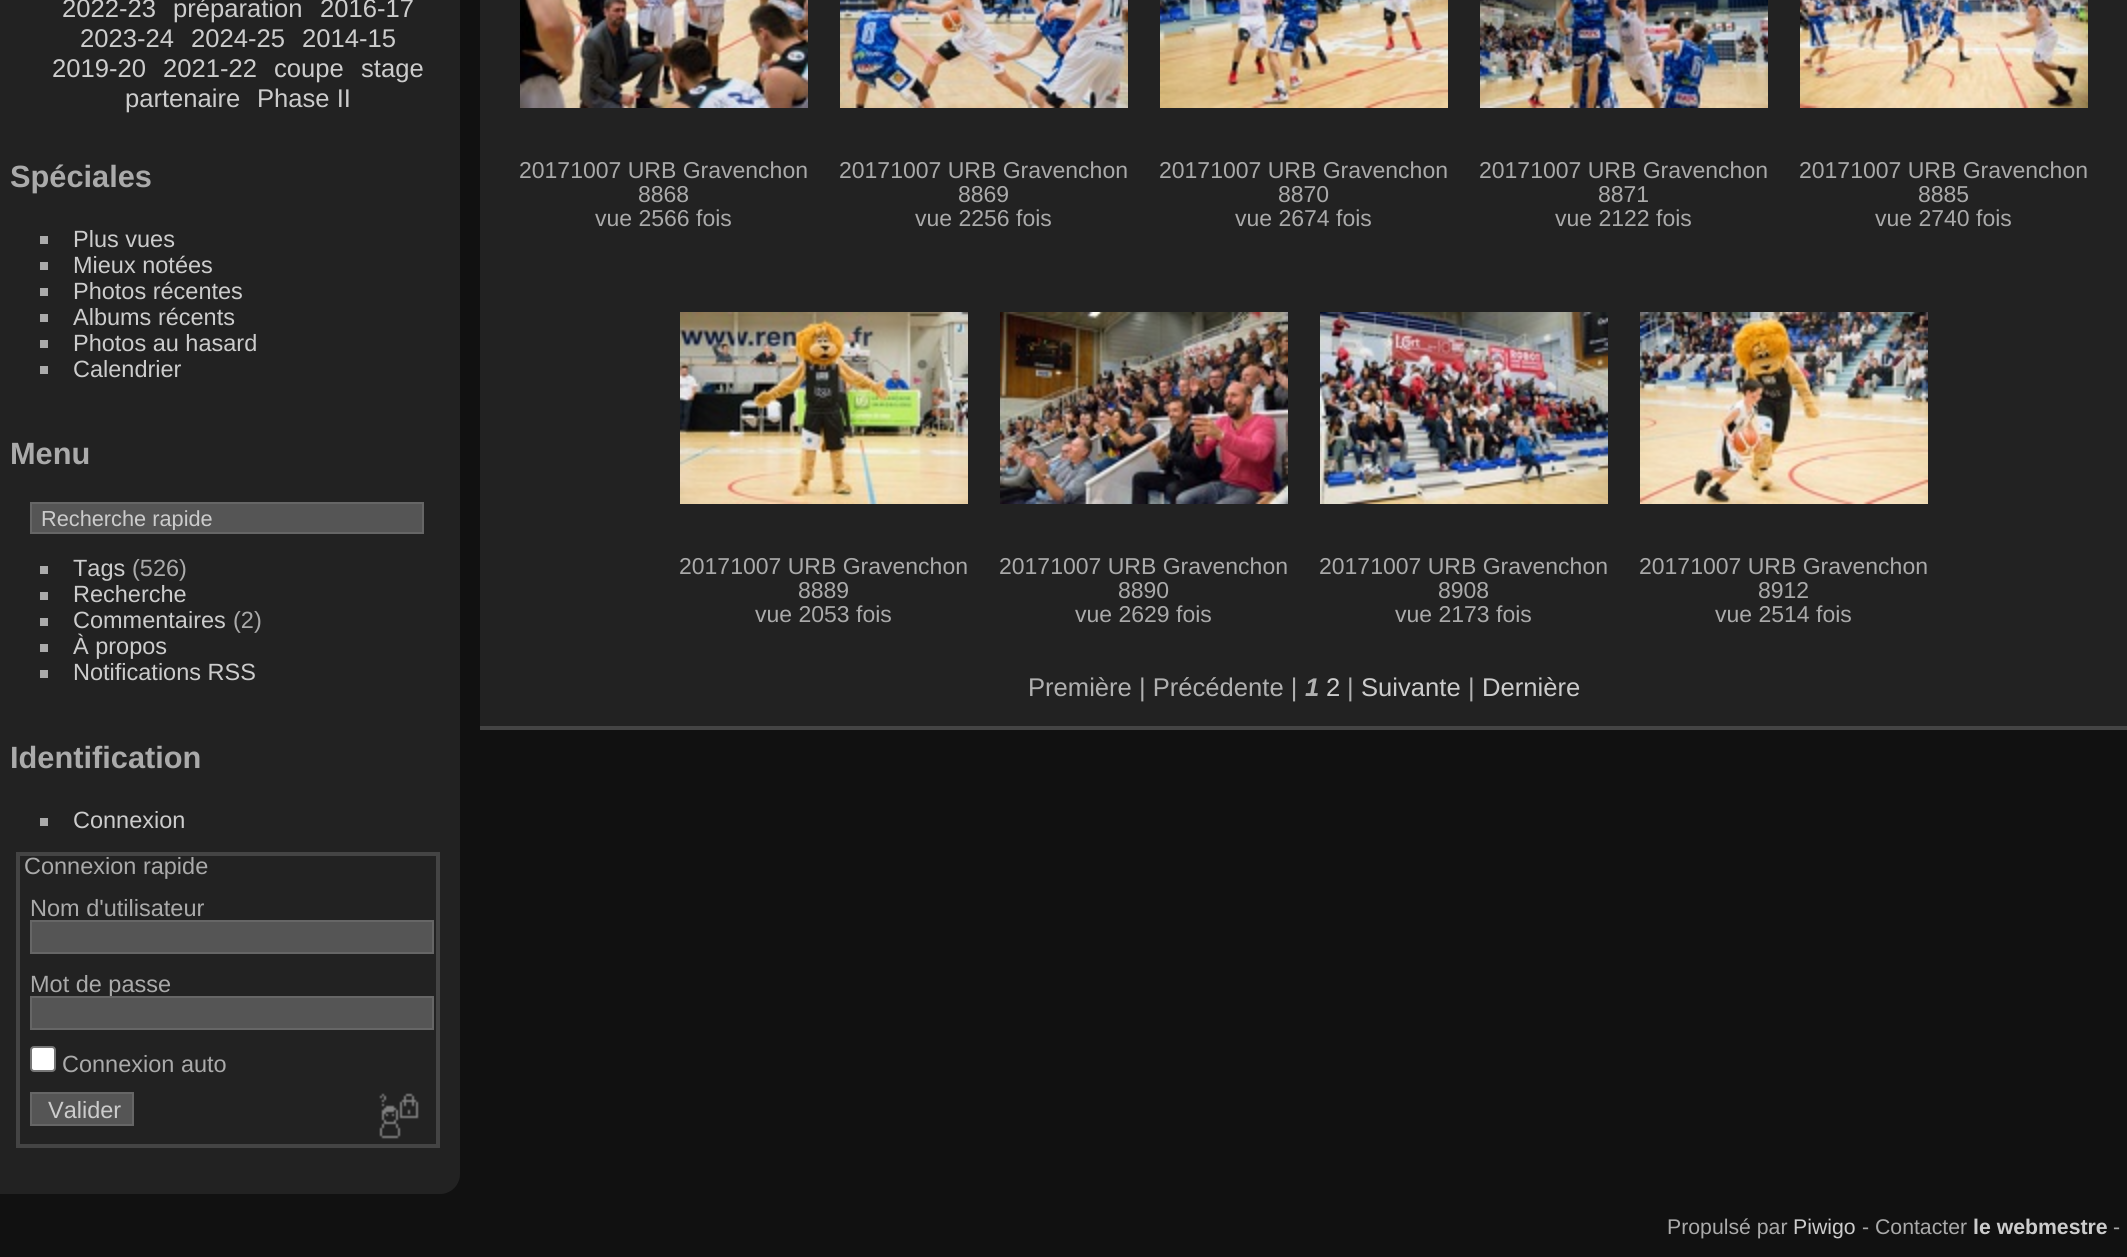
import math
import cairo

surface = cairo.ImageSurface(cairo.FORMAT_RGB24, 2127, 1257)
c = cairo.Context(surface)
options = cairo.FontOptions()
options.set_hint_metrics(cairo.HINT_METRICS_OFF)
options.set_hint_style(cairo.HINT_STYLE_NONE)
c.set_font_options(options)
c.set_miter_limit(4)
def C(code):
 c.set_source_rgb(*(v / 255 for v in bytes.fromhex(code[-6:])))
def F(family, size, italic, bold):
 c.select_font_face(family, cairo.FONT_SLANT_ITALIC if italic else cairo.FONT_SLANT_NORMAL, cairo.FONT_WEIGHT_BOLD if bold else cairo.FONT_WEIGHT_NORMAL)
 c.set_font_size(size)
def T(x, y, s):
 c.move_to(x, y)
 c.show_text(s)
def R(x, y, w, h):
 c.rectangle(x, y, w, h)
 c.fill()
def Q(x, y, w, h, r):
 c.new_sub_path()
 for i, (u, v) in enumerate([(x + w - r, y + h - r), (x + r, y + h - r), (x + r, y + r), (x + w - r, y + r)]):
  c.arc(u, v, r, i * math.pi / 2, (i + 1) * math.pi / 2)
 c.close_path()
def I(path, x, y, w, h):
 c.save()
 c.set_source_surface(cairo.ImageSurface.create_from_png(path), x, y)
 c.rectangle(x, y, w, h)
 c.fill()
 c.restore()
C('111111')
c.paint()
C('222222')
c.new_path()
c.move_to(0,-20)
c.line_to(440,-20)
c.curve_to(451,-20,460,-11,460,0)
c.line_to(460,1174)
c.curve_to(460,1185,451,1194,440,1194)
c.line_to(0,1194)
c.close_path()
c.fill()
F('Liberation Sans',25.6,0,0)
C('cccccc')
T(62,17,'2022-23')
T(173,17,'préparation')
T(320,17,'2016-17')
T(80,47,'2023-24')
T(191,47,'2024-25')
T(302,47,'2014-15')
T(52,77,'2019-20')
T(163,77,'2021-22')
T(274,77,'coupe')
T(361,77,'stage')
T(125,107,'partenaire')
T(257,107,'Phase II')
F('Liberation Sans',30.75,0,1)
C('aaaaaa')
T(10,187,'Spéciales')
R(40,236,8,8)
F('Liberation Sans',23.5,0,0)
C('cccccc')
T(73,247,'Plus vues')
C('aaaaaa')
R(40,262,8,8)
C('cccccc')
T(73,273,'Mieux notées')
C('aaaaaa')
R(40,288,8,8)
C('cccccc')
T(73,299,'Photos récentes')
C('aaaaaa')
R(40,314,8,8)
C('cccccc')
T(73,325,'Albums récents')
C('aaaaaa')
R(40,340,8,8)
C('cccccc')
T(73,351,'Photos au hasard')
C('aaaaaa')
R(40,366,8,8)
C('cccccc')
T(73,377,'Calendrier')
F('Liberation Sans',30.75,0,1)
C('aaaaaa')
T(10,464,'Menu')
C('555555')
c.rectangle(31,503,392,30)
c.fill_preserve()
C('666666')
c.stroke()
c.save()
c.rectangle(36,506,382,24)
c.clip()
F('Liberation Sans',21.75,0,0)
C('cccccc')
T(41,526,'Recherche rapide')
c.restore()
C('aaaaaa')
R(40,566,8,8)
F('Liberation Sans',23.5,0,0)
C('cccccc')
T(73,576,'Tags')
C('aaaaaa')
T(132,576,'(526)')
R(40,592,8,8)
C('cccccc')
T(73,602,'Recherche')
C('aaaaaa')
R(40,618,8,8)
C('cccccc')
T(73,628,'Commentaires')
C('aaaaaa')
T(233,628,'(2)')
R(40,644,8,8)
C('cccccc')
T(73,654,'À propos')
C('aaaaaa')
R(40,670,8,8)
C('cccccc')
T(73,680,'Notifications RSS')
F('Liberation Sans',30.75,0,1)
C('aaaaaa')
T(10,768,'Identification')
R(40,818,8,8)
F('Liberation Sans',23.5,0,0)
C('cccccc')
T(73,828,'Connexion')
c.rectangle(18,854,420,292)
C('444444')
c.set_line_width(4)
c.stroke()
C('aaaaaa')
T(24,874,'Connexion rapide')
T(30,916,'Nom d\'utilisateur')
C('555555')
c.rectangle(31,921,402,32)
c.fill_preserve()
C('666666')
c.set_line_width(2)
c.stroke()
C('aaaaaa')
T(30,992,'Mot de passe')
C('555555')
c.rectangle(31,997,402,32)
c.fill_preserve()
C('666666')
c.stroke()
C('ffffff')
Q(31,1047,24,24,3)
c.fill_preserve()
C('767676')
c.stroke()
C('aaaaaa')
T(62,1072,'Connexion auto')
C('555555')
c.rectangle(31,1093,102,32)
c.fill_preserve()
C('666666')
c.stroke()
C('cccccc')
T(48,1118,'Valider')
I('1.png',379,1093,40,46)
C('222222')
R(480,0,1647,726)
C('444444')
R(480,726,1647,4)
I('2.png',520,0,288,108)
F('Liberation Sans',23,0,0)
C('aaaaaa')
T(519,178,'20171007 URB Gravenchon')
T(638,202,'8868')
T(595,226,'vue 2566 fois')
I('3.png',840,0,288,108)
T(839,178,'20171007 URB Gravenchon')
T(958,202,'8869')
T(915,226,'vue 2256 fois')
I('4.png',1160,0,288,108)
T(1159,178,'20171007 URB Gravenchon')
T(1278,202,'8870')
T(1235,226,'vue 2674 fois')
I('5.png',1480,0,288,108)
T(1479,178,'20171007 URB Gravenchon')
T(1598,202,'8871')
T(1555,226,'vue 2122 fois')
I('6.png',1800,0,288,108)
T(1799,178,'20171007 URB Gravenchon')
T(1918,202,'8885')
T(1875,226,'vue 2740 fois')
I('7.png',680,312,288,192)
T(679,574,'20171007 URB Gravenchon')
T(798,598,'8889')
T(755,622,'vue 2053 fois')
I('8.png',1000,312,288,192)
T(999,574,'20171007 URB Gravenchon')
T(1118,598,'8890')
T(1075,622,'vue 2629 fois')
I('9.png',1320,312,288,192)
T(1319,574,'20171007 URB Gravenchon')
T(1438,598,'8908')
T(1395,622,'vue 2173 fois')
I('10.png',1640,312,288,192)
T(1639,574,'20171007 URB Gravenchon')
T(1758,598,'8912')
T(1715,622,'vue 2514 fois')
F('Liberation Sans',25.6,0,0)
C('b0b0b0')
T(1028,696,'Première | Précédente |')
F('Liberation Sans',25.6,1,1)
T(1305,696,'1')
F('Liberation Sans',25.6,0,0)
C('cccccc')
T(1326,696,'2')
C('b0b0b0')
T(1347,696,'|')
C('cccccc')
T(1361,696,'Suivante')
C('b0b0b0')
T(1468,696,'|')
C('cccccc')
T(1482,696,'Dernière')
F('Liberation Sans',21.25,0,0)
C('aaaaaa')
T(1667,1234,'Propulsé par')
C('cccccc')
T(1793,1234,'Piwigo')
C('aaaaaa')
T(1862,1234,'- Contacter')
F('Liberation Sans',21.25,0,1)
C('cccccc')
T(1973,1234,'le webmestre')
F('Liberation Sans',21.25,0,0)
C('aaaaaa')
T(2113,1234,'-')
surface.write_to_png('o.png')
